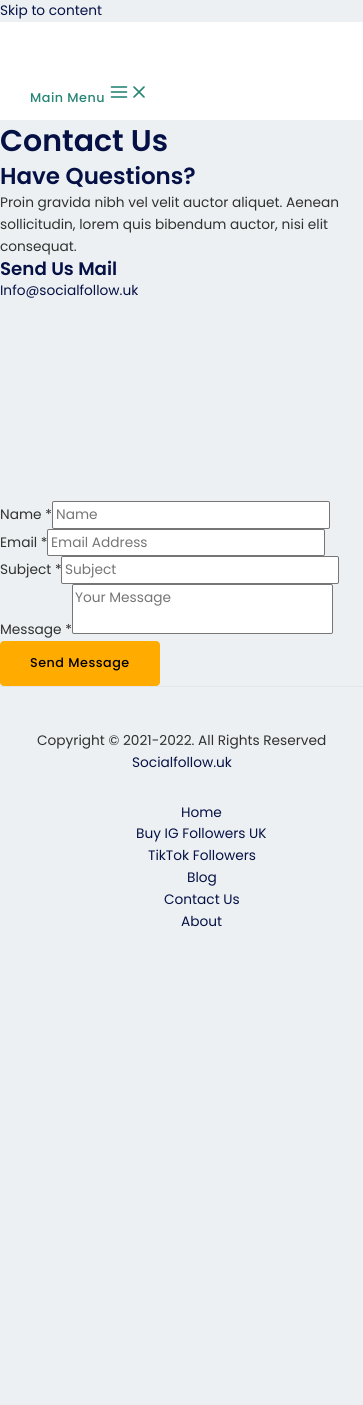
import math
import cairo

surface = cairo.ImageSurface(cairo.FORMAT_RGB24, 363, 1405)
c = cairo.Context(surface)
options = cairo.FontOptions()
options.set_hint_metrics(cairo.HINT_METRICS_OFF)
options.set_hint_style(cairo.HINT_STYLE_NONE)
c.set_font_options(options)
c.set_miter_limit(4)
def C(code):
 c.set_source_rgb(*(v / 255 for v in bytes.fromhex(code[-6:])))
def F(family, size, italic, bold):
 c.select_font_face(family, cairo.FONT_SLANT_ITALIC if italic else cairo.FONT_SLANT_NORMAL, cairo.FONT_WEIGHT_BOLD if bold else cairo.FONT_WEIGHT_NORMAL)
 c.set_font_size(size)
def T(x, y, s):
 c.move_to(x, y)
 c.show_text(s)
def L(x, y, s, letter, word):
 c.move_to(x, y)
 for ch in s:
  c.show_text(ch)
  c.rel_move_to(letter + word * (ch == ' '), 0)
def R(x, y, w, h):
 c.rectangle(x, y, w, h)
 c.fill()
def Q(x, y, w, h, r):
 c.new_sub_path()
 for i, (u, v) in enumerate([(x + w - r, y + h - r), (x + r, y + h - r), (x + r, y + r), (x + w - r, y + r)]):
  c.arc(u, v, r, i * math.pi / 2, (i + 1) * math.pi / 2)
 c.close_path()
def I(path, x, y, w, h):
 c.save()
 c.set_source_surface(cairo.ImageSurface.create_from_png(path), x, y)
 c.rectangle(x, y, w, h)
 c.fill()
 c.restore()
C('ecf0f2')
c.paint()
F('Poppins',13.7,0,0)
C('051145')
T(0,15,'Skip to content')
C('ffffff')
R(0,22,363,98)
F('Poppins Medium',12.75,0,0)
C('278575')
L(30,102,'Main Menu',.5,0)
I('1.png',110,86,18,12)
I('2.png',133,86,12,12)
F('Poppins SemiBold',30,0,0)
C('051145')
T(0,151,'Contact Us')
F('Poppins SemiBold',23,0,0)
T(0,184,'Have Questions?')
F('Poppins',13.7,0,0)
C('303030')
T(0,207,'Proin gravida nibh vel velit auctor aliquet. Aenean')
T(0,229,'sollicitudin, lorem quis bibendum auctor, nisi elit')
T(0,251,'consequat.')
F('Poppins SemiBold',18.25,0,0)
C('051145')
T(0,275,'Send Us Mail')
F('Poppins',13.7,0,0)
T(0,295,'Info@socialfollow.uk')
C('303030')
T(0,519,'Name *')
C('ffffff')
Q(52.5,501.5,277,27,1.5)
c.fill_preserve()
C('767676')
c.set_line_width(1)
c.stroke()
C('757575')
T(56,519,'Name')
C('303030')
T(0,547,'Email *')
C('ffffff')
Q(47.5,529.5,277,26,1.5)
c.fill_preserve()
C('767676')
c.stroke()
C('757575')
T(51,547,'Email Address')
C('303030')
T(0,574,'Subject *')
C('ffffff')
Q(61.5,556.5,277,27,1.5)
c.fill_preserve()
C('767676')
c.stroke()
C('757575')
T(65,574,'Subject')
C('ffffff')
Q(72.5,584.5,260,49,1.5)
c.fill_preserve()
C('767676')
c.stroke()
C('757575')
T(75,602,'Your Message')
C('303030')
T(0,634,'Message *')
C('ffab00')
Q(0,641,160,45,4)
c.fill()
F('Poppins Medium',12.75,0,0)
C('000000')
L(30,667,'Send Message',.5,0)
C('e5e5e5')
R(0,686,363,1)
F('Poppins',13.7,0,0)
C('303030')
T(37,745,'Copyright © 2021-2022. All Rights Reserved')
C('051145')
T(132,767,'Socialfollow.uk')
T(181,817,'Home')
T(136,838,'Buy IG Followers UK')
T(148,860,'TikTok Followers')
T(187,882,'Blog')
T(164,904,'Contact Us')
T(181,926,'About')
surface.write_to_png('o.png')
